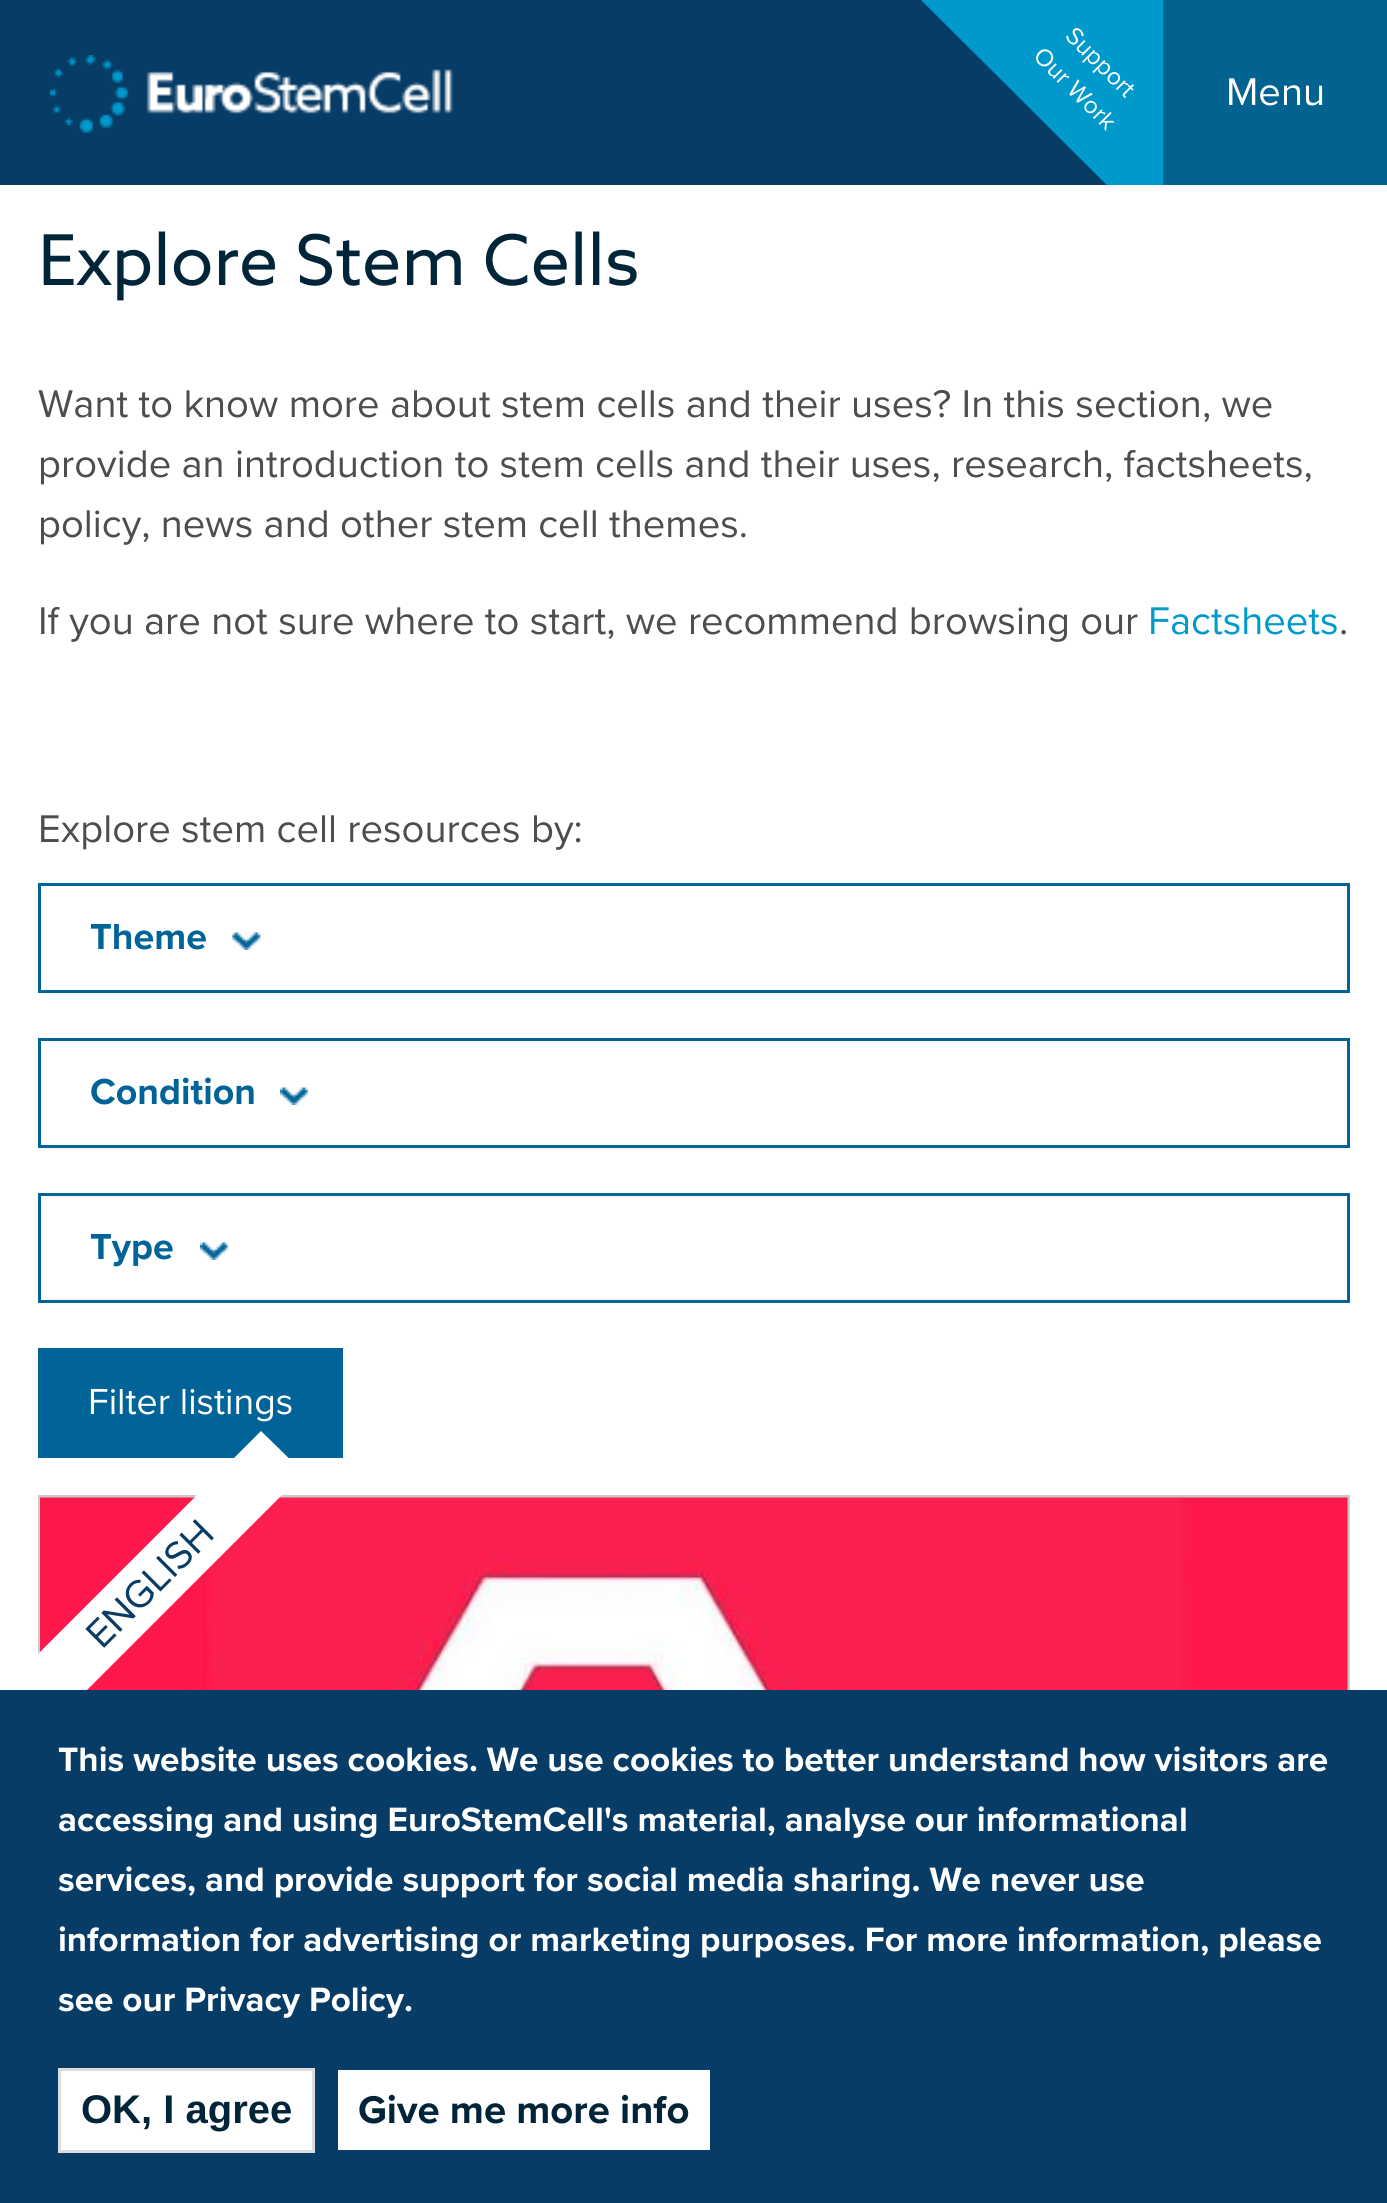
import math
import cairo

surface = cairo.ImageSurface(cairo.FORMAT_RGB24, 1387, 2203)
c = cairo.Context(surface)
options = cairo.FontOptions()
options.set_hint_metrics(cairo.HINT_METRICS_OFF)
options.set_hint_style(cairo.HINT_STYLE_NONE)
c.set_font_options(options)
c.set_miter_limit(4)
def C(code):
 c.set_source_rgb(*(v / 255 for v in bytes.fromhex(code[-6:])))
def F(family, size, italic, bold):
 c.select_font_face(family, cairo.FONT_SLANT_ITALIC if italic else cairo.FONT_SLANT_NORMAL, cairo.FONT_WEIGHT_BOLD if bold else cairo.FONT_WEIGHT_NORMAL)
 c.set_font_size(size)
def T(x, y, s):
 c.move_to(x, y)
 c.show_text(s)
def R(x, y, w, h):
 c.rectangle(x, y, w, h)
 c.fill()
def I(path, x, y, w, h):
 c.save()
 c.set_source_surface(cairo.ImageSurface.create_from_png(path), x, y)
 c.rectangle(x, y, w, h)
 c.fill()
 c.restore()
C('ffffff')
c.paint()
C('073c66')
R(0,0,1107,185)
c.save()
c.rectangle(908,0,325,185)
c.clip()
C('0099cc')
c.new_path()
c.move_to(1078,-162)
c.line_to(1325,85)
c.line_to(1166,244)
c.line_to(918,-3)
c.close_path()
c.fill()
c.restore()
F('Proxima Nova',25,0,0)
C('ffffff')
c.save()
c.translate(1064,37)
c.rotate(45 * math.pi / 180)
T(0,0,'Support')
c.restore()
c.save()
c.translate(1032,57)
c.rotate(45 * math.pi / 180)
T(0,0,'Our Work')
c.restore()
I('1.png',50,55,403,78)
C('036390')
R(1163,0,224,185)
F('Proxima Nova',40,0,0)
C('ffffff')
T(1226,105,'Menu')
F('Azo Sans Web',70,0,0)
C('002438')
T(38,285,'Explore Stem Cells')
F('Proxima Nova',40,0,0)
C('4d4d4d')
T(38,417,'Want to know more about stem cells and their uses? In this section, we')
T(38,477,'provide an introduction to stem cells and their uses, research, factsheets,')
T(38,537,'policy, news and other stem cell themes.')
T(38,634,'If you are not sure where to start, we recommend browsing our')
C('0099cc')
T(1148,634,'Factsheets')
C('4d4d4d')
T(1339,634,'.')
T(38,842,'Explore stem cell resources by:')
c.rectangle(39.5,884.5,1309,107)
C('006498')
c.set_line_width(3)
c.stroke()
F('Proxima Nova',37.5,0,1)
T(90,949,'Theme')
I('2.png',232,932,29,18)
c.rectangle(39.5,1039.5,1309,107)
c.stroke()
T(90,1104,'Condition')
I('3.png',280,1087,29,18)
c.rectangle(39.5,1194.5,1309,107)
c.stroke()
T(90,1259,'Type')
I('4.png',200,1242,29,18)
R(38,1348,305,110)
F('Proxima Nova',37.5,0,0)
C('ffffff')
T(88,1414,'Filter listings')
c.rectangle(39.5,1496.5,1309,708)
C('cacaca')
c.stroke()
I('5.png',40,1497,1308,193)
C('ffffff')
c.new_path()
c.move_to(-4,1696)
c.line_to(261,1431)
c.line_to(304,1473)
c.line_to(39,1738)
c.close_path()
c.fill()
F('Proxima Nova',40,0,0)
C('073c66')
c.save()
c.translate(102,1650)
c.rotate(-45 * math.pi / 180)
T(0,0,'ENGLISH')
c.restore()
R(0,1690,1387,513)
F('Proxima Nova',35,0,1)
C('ffffff')
T(58,1771,'This website uses cookies. We use cookies to better understand how visitors are')
T(58,1831,'accessing and using EuroStemCell\'s material, analyse our informational')
T(58,1891,'services, and provide support for social media sharing. We never use')
T(58,1951,'information for advertising or marketing purposes. For more information, please')
T(58,2011,'see our Privacy Policy.')
c.rectangle(59.5,2069.5,254,82)
c.fill_preserve()
C('dcdcdc')
c.stroke()
F('Liberation Sans',40,0,1)
C('002438')
T(81,2123,'OK, I agree')
C('ffffff')
R(338,2070,372,80)
F('Proxima Nova',40,0,1)
C('002438')
T(358,2123,'Give me more info')
surface.write_to_png('o.png')
